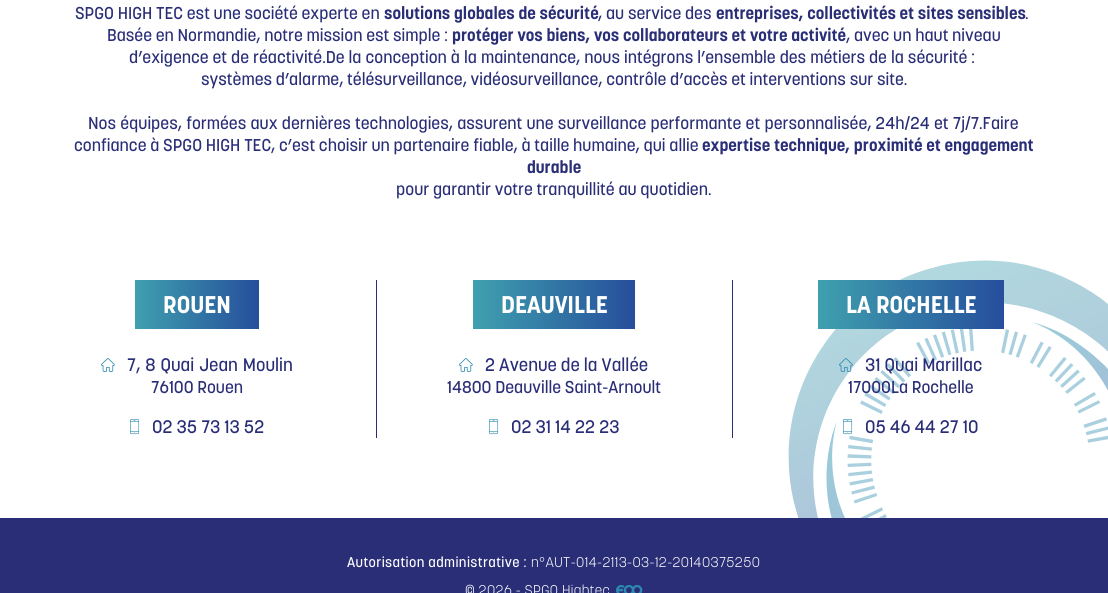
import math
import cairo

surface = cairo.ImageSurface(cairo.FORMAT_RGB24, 1108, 593)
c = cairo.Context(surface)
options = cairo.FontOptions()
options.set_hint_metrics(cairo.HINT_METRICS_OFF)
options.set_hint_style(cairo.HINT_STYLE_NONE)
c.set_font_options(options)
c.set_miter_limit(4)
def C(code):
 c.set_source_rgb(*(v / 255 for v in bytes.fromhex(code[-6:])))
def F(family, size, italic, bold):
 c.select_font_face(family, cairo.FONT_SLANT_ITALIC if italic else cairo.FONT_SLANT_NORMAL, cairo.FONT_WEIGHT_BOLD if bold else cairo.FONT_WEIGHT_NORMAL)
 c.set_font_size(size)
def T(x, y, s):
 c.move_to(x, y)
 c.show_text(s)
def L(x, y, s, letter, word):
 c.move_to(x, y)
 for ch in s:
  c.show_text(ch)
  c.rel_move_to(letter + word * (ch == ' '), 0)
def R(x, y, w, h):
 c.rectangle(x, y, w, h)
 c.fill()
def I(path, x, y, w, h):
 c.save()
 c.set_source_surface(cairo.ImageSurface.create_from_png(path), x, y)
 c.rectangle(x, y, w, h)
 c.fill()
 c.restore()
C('ffffff')
c.paint()
I('1.png',788,260,320,258)
F('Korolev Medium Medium',17,0,0)
C('292e77')
T(75,19,'SPGO HIGH TEC est une société experte en')
F('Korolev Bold',17,0,1)
T(384,19,'solutions globales de sécurité')
F('Korolev Medium Medium',17,0,0)
T(598,19,', au service des')
F('Korolev Bold',17,0,1)
T(716,19,'entreprises, collectivités et sites sensibles')
F('Korolev Medium Medium',17,0,0)
T(1025,19,'.')
T(107,41,'Basée en Normandie, notre mission est simple :')
F('Korolev Bold',17,0,1)
T(452,41,'protéger vos biens, vos collaborateurs et votre activité')
F('Korolev Medium Medium',17,0,0)
T(846,41,', avec un haut niveau')
L(129,63,'d’exigence et de réactivité.De la conception à la maintenance, nous intégrons l’ensemble des métiers de la sécurité :',0,.25)
T(201,85,'systèmes d’alarme, télésurveillance, vidéosurveillance, contrôle d’accès et interventions sur site.')
L(88,129,'Nos équipes, formées aux dernières technologies, assurent une surveillance performante et personnalisée, 24h/24 et 7j/7.Faire',0,.5)
T(74,151,'confiance à SPGO HIGH TEC, c’est choisir un partenaire fiable, à taille humaine, qui allie')
F('Korolev Bold',17,0,1)
T(702,151,'expertise technique, proximité et engagement')
T(527,173,'durable')
F('Korolev Medium Medium',17,0,0)
T(396,195,'pour garantir votre tranquillité au quotidien.')
gradient = cairo.LinearGradient(135,305,259,305)
gradient.add_color_stop_rgba(0,0.247,0.627,0.686,1)
gradient.add_color_stop_rgba(.66,0.18,0.416,0.635,1)
gradient.add_color_stop_rgba(1,0.149,0.306,0.612,1)
c.set_source(gradient)
R(135,280,124,49)
F('Korolev Bold',24,0,1)
C('ffffff')
T(163,313,'ROUEN')
I('2.png',101,358,14,14)
F('Korolev Medium Medium',18,0,0)
C('292e77')
L(127,371,'7, 8 Quai Jean Moulin',0,1)
F('Korolev Medium Medium',17,0,0)
T(151,393,'76100 Rouen')
I('3.png',130,419,10,16)
F('Korolev Medium Medium',18,0,0)
T(152,433,'02 35 73 13 52')
R(376,280,1,158)
gradient = cairo.LinearGradient(473,305,635,305)
gradient.add_color_stop_rgba(0,0.247,0.627,0.686,1)
gradient.add_color_stop_rgba(.66,0.18,0.416,0.635,1)
gradient.add_color_stop_rgba(1,0.149,0.306,0.612,1)
c.set_source(gradient)
R(473,280,162,49)
F('Korolev Bold',24,0,1)
C('ffffff')
T(501,313,'DEAUVILLE')
I('2.png',459,358,14,14)
F('Korolev Medium Medium',18,0,0)
C('292e77')
T(485,371,'2 Avenue de la Vallée')
F('Korolev Medium Medium',17,0,0)
T(447,393,'14800 Deauville Saint-Arnoult')
I('3.png',489,419,10,16)
F('Korolev Medium Medium',18,0,0)
T(511,433,'02 31 14 22 23')
R(732,280,1,158)
gradient = cairo.LinearGradient(818,305,1004,305)
gradient.add_color_stop_rgba(0,0.247,0.627,0.686,1)
gradient.add_color_stop_rgba(.66,0.18,0.416,0.635,1)
gradient.add_color_stop_rgba(1,0.149,0.306,0.612,1)
c.set_source(gradient)
R(818,280,186,49)
F('Korolev Bold',24,0,1)
C('ffffff')
T(846,313,'LA ROCHELLE')
I('4.png',839,358,14,14)
F('Korolev Medium Medium',18,0,0)
C('292e77')
T(865,371,'31 Quai Marillac')
F('Korolev Medium Medium',17,0,0)
T(848,393,'17000La Rochelle')
I('3.png',843,419,10,16)
F('Korolev Medium Medium',18,0,0)
T(865,433,'05 46 44 27 10')
R(0,518,1108,75)
F('Korolev Medium Medium',14,0,0)
C('ffffff')
L(347,567,'Autorisation administrative :',.4,0)
F('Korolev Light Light',14,0,0)
L(531,567,'n°AUT-014-2113-03-12-20140375250',.4,0)
L(465,595,'© 2026 - SPGO Hightec',.4,0)
I('5.png',616,585,27,8)
surface.write_to_png('o.png')
